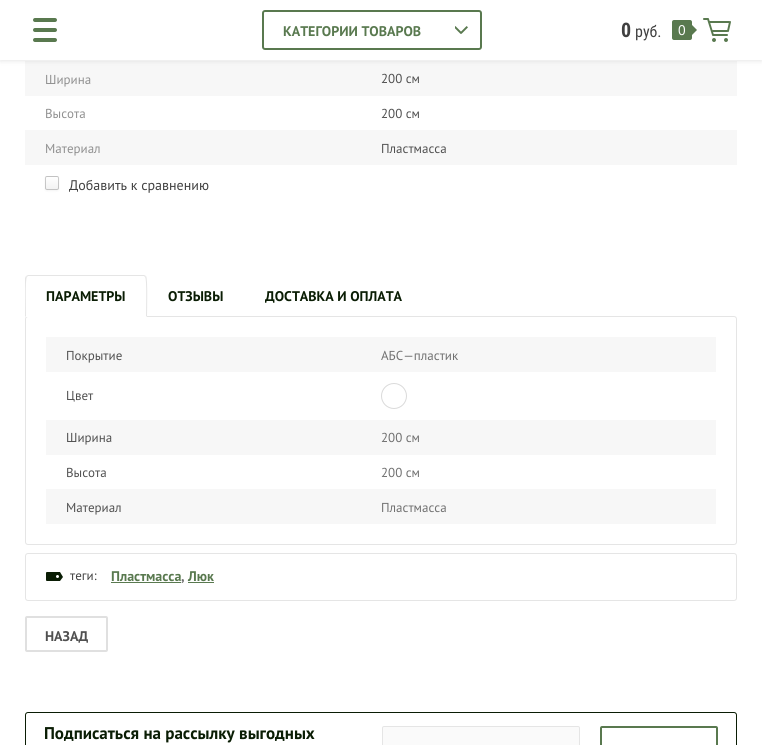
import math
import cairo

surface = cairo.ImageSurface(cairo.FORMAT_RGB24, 762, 745)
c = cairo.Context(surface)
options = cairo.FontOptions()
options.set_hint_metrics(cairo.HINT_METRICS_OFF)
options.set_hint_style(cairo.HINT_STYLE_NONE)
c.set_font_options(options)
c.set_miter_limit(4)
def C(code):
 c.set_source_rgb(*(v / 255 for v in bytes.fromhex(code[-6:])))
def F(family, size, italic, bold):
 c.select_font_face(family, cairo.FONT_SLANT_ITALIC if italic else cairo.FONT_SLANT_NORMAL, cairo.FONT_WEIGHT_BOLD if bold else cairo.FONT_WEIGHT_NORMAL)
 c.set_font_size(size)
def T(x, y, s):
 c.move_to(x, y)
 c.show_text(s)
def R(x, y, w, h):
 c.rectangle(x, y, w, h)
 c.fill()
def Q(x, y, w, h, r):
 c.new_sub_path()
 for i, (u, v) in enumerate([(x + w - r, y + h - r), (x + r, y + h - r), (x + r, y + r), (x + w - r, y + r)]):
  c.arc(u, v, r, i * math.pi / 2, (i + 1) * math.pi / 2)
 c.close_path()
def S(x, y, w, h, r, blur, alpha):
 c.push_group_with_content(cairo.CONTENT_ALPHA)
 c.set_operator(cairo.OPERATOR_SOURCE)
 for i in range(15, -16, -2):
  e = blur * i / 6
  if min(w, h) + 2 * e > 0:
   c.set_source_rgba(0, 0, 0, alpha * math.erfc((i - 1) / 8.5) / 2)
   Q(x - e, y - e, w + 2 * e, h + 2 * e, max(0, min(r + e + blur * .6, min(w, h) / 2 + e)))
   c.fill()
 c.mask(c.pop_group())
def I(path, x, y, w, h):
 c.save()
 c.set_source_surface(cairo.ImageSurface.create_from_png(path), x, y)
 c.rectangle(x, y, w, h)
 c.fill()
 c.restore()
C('ffffff')
c.paint()
C('f7f7f7')
R(25,61,712,35)
C('000000')
S(0,1,762,60,0,2.5,.1)
C('ffffff')
R(0,0,762,60)
C('59794f')
Q(33,18,24,4,2)
c.fill()
Q(33,28,24,4,2)
c.fill()
Q(33,38,24,4,2)
c.fill()
Q(263,11,218,38,2)
c.stroke()
F('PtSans',14,0,1)
T(283,36,'КАТЕГОРИИ ТОВАРОВ')
I('1.png',455,26,13,8)
F('Roboto Condensed',20,0,1)
C('404040')
T(621,37,'0')
F('Roboto Condensed',16,0,0)
T(635,37,'руб.')
C('59794f')
Q(672,20,20,20,2)
c.fill()
F('PtSans',14,0,0)
C('ffffff')
T(678,35,'0')
C('59794f')
c.new_path()
c.move_to(692,35)
c.line_to(692,25)
c.line_to(697,30)
c.close_path()
c.fill()
I('2.png',703,18,28,24)
F('PtSans',13,0,0)
C('909090')
T(45,84,'Ширина')
C('505050')
T(381,83,'200 см')
C('909090')
T(45,118,'Высота')
C('505050')
T(381,118,'200 см')
C('f7f7f7')
R(25,130,712,35)
C('909090')
T(45,153,'Материал')
C('505050')
T(381,153,'Пластмасса')
C('000000')
S(45,177,14,14,2,1,.05)
c.save()
Q(45,176,14,14,2)
c.clip()
gradient = cairo.LinearGradient(52,177,52,165)
gradient.add_color_stop_rgba(0,0.949,0.949,0.949,1)
gradient.add_color_stop_rgba(1,1,1,1,1)
c.set_source(gradient)
R(45,176,14,1)
gradient = cairo.LinearGradient(52,189,52,177)
gradient.add_color_stop_rgba(0,0.949,0.949,0.949,1)
gradient.add_color_stop_rgba(1,1,1,1,1)
c.set_source(gradient)
R(45,177,14,12)
c.restore()
Q(45.5,176.5,13,13,1.5)
c.set_source_rgba(0,0,0,0.2)
c.set_line_width(1)
c.stroke()
F('PtSans',14,0,0)
C('404040')
T(69,190,'Добавить к сравнению')
C('e5e5e5')
c.new_path()
c.move_to(28,275)
c.line_to(26,276)
c.line_to(27,277)
c.line_to(28,276)
c.line_to(144,276)
c.line_to(145,277)
c.line_to(146,276)
c.line_to(144,275)
c.close_path()
c.fill()
Q(25.5,316.5,711,228,2.5)
c.stroke()
c.new_path()
c.move_to(147,317)
c.curve_to(147,312,148,278,146,276)
c.line_to(145,277)
c.curve_to(147,278,146,311,146,316)
c.close_path()
c.fill()
C('ffffff')
c.new_path()
c.move_to(147,317)
c.line_to(146,316)
c.line_to(26,316)
c.line_to(25,317)
c.close_path()
c.fill()
C('e5e5e5')
c.new_path()
c.move_to(25,317)
c.line_to(26,316)
c.curve_to(26,311,25,278,27,277)
c.line_to(26,276)
c.line_to(25,278)
c.close_path()
c.fill()
F('PtSans',14,0,1)
C('0a1d04')
T(46,301,'ПАРАМЕТРЫ')
T(168,301,'ОТЗЫВЫ')
T(265,301,'ДОСТАВКА И ОПЛАТА')
C('f7f7f7')
R(46,337,670,35)
F('PtSans',13,0,0)
C('505050')
T(66,360,'Покрытие')
C('707070')
T(381,360,'АБС—пластик')
C('505050')
T(66,400,'Цвет')
c.new_path()
c.arc(394,396,12.5,0,2 * math.pi)
C('dadada')
c.stroke()
C('f7f7f7')
R(46,420,670,35)
C('505050')
T(66,442,'Ширина')
C('707070')
T(381,442,'200 см')
C('505050')
T(66,477,'Высота')
C('707070')
T(381,477,'200 см')
C('f7f7f7')
R(46,489,670,35)
C('505050')
T(66,512,'Материал')
C('707070')
T(381,512,'Пластмасса')
Q(25.5,553.5,711,47,2.5)
C('e5e5e5')
c.stroke()
I('3.png',46,572,17,9)
C('404040')
T(70,580,'теги:')
F('PtSans',14,0,1)
C('59794f')
T(111,581,'Пластмасса')
R(111,582,70,1)
C('707070')
T(181,581,',')
C('59794f')
T(188,581,'Люк')
R(188,582,26,1)
Q(26,617,81,34,1)
C('e0e0e0')
c.set_line_width(2)
c.stroke()
C('505050')
T(45,641,'НАЗАД')
Q(25.5,712.5,711,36,2.5)
C('0a1d04')
c.set_line_width(1)
c.stroke()
F('PtSans',17,0,1)
T(44,739,'Подписаться на рассылку выгодных')
C('fafafa')
Q(382.5,726.5,197,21,1.5)
c.fill_preserve()
C('e5e5e5')
c.stroke()
Q(601,727,116,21,1)
C('59794f')
c.set_line_width(2)
c.stroke()
surface.write_to_png('o.png')
